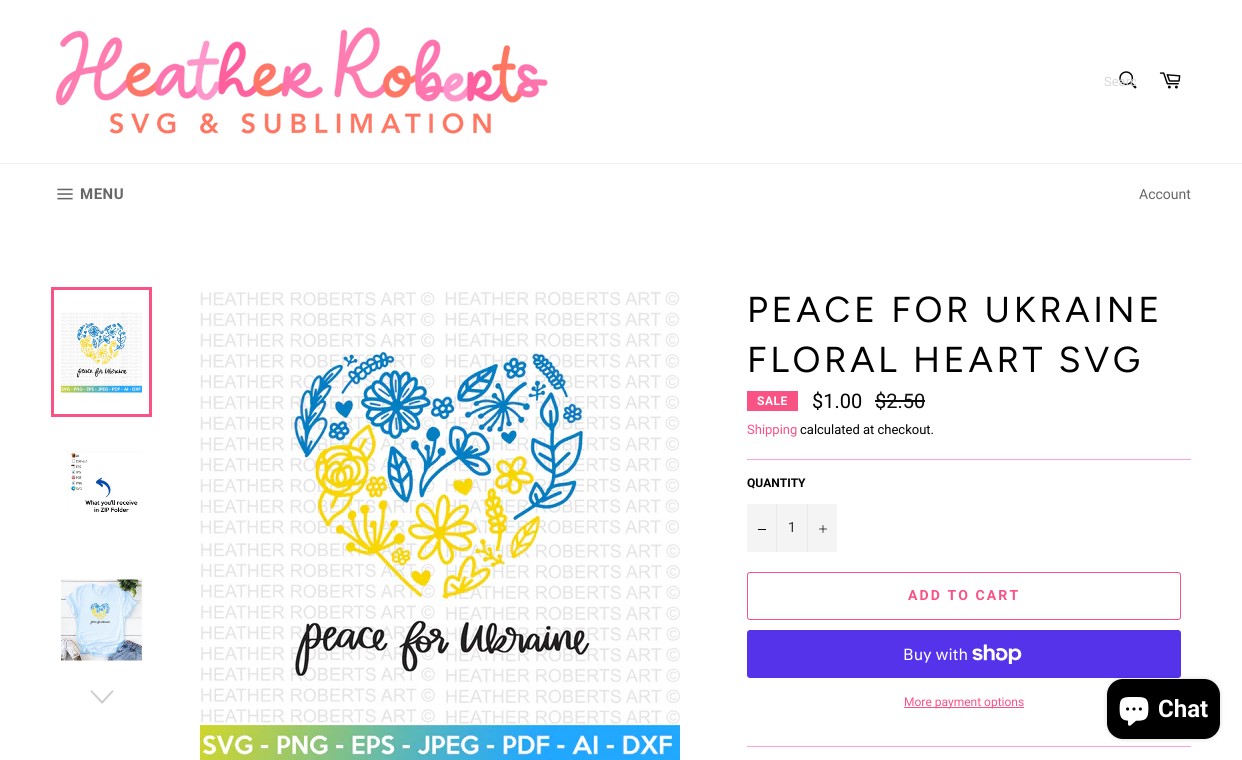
import math
import cairo

surface = cairo.ImageSurface(cairo.FORMAT_RGB24, 1242, 760)
c = cairo.Context(surface)
options = cairo.FontOptions()
options.set_hint_metrics(cairo.HINT_METRICS_OFF)
options.set_hint_style(cairo.HINT_STYLE_NONE)
c.set_font_options(options)
c.set_miter_limit(4)
def C(code):
 c.set_source_rgb(*(v / 255 for v in bytes.fromhex(code[-6:])))
def F(family, size, italic, bold):
 c.select_font_face(family, cairo.FONT_SLANT_ITALIC if italic else cairo.FONT_SLANT_NORMAL, cairo.FONT_WEIGHT_BOLD if bold else cairo.FONT_WEIGHT_NORMAL)
 c.set_font_size(size)
def T(x, y, s):
 c.move_to(x, y)
 c.show_text(s)
def L(x, y, s, letter, word):
 c.move_to(x, y)
 for ch in s:
  c.show_text(ch)
  c.rel_move_to(letter + word * (ch == ' '), 0)
def R(x, y, w, h):
 c.rectangle(x, y, w, h)
 c.fill()
def Q(x, y, w, h, r):
 c.new_sub_path()
 for i, (u, v) in enumerate([(x + w - r, y + h - r), (x + r, y + h - r), (x + r, y + r), (x + w - r, y + r)]):
  c.arc(u, v, r, i * math.pi / 2, (i + 1) * math.pi / 2)
 c.close_path()
def S(x, y, w, h, r, blur, alpha):
 c.push_group_with_content(cairo.CONTENT_ALPHA)
 c.set_operator(cairo.OPERATOR_SOURCE)
 for i in range(15, -16, -2):
  e = blur * i / 6
  if min(w, h) + 2 * e > 0:
   c.set_source_rgba(0, 0, 0, alpha * math.erfc((i - 1) / 8.5) / 2)
   Q(x - e, y - e, w + 2 * e, h + 2 * e, max(0, min(r + e + blur * .6, min(w, h) / 2 + e)))
   c.fill()
 c.mask(c.pop_group())
def I(path, x, y, w, h):
 c.save()
 c.set_source_surface(cairo.ImageSurface.create_from_png(path), x, y)
 c.rectangle(x, y, w, h)
 c.fill()
 c.restore()
C('ffffff')
c.paint()
I('1.png',55,27,493,107)
I('2.png',1119,71,18,18)
c.save()
c.rectangle(1104,74,32,15)
c.clip()
F('Roboto',13,0,0)
C('d7d7d7')
T(1104,86,'Searc')
c.restore()
I('3.png',1159,72,22,17)
C('f2f2f2')
R(0,163,1242,1)
I('4.png',57,188,16,12)
F('Roboto',15,0,1)
C('666666')
L(80,199,'MENU',.5,0)
F('Roboto',14,0,0)
T(1139,199,'Account')
I('5.png',61,312,81,81)
c.rectangle(52.5,288.5,98,127)
C('f95284')
c.set_line_width(3)
c.stroke()
I('6.png',67,451,75,62)
I('7.png',61,579,81,82)
C('cccccc')
c.new_path()
c.move_to(112.5,690)
c.line_to(113.5,691.5)
c.line_to(102,704)
c.line_to(90.5,691.5)
c.line_to(91.5,690)
c.line_to(102,701)
c.close_path()
c.fill()
I('8.png',200,289,480,471)
F('Figtree',36,0,0)
C('000000')
L(747,322,'PEACE FOR UKRAINE',3.6,0)
L(747,372,'FLORAL HEART SVG',3.6,0)
C('f95284')
R(747,391,51,20)
F('Roboto',12,0,1)
C('ffffff')
L(757,405,'SALE',.5,0)
F('Roboto',20,0,0)
C('000000')
T(812,408,'$1.00')
C('0d0d0d')
T(875,408,'$2.50')
R(875,400,50,2)
F('Roboto',13,0,0)
C('f95284')
T(747,434,'Shipping')
C('000000')
T(800,434,'calculated at checkout.')
C('faa4db')
R(747,459,444,1)
F('Roboto',12,0,1)
C('000000')
T(747,487,'QUANTITY')
C('f4f4f4')
R(747,504,90,48)
C('e7e7e7')
R(776,504,1,48)
C('000000')
R(758,529,8,1)
F('Roboto',14,0,0)
C('333333')
T(788,532,'1')
C('e7e7e7')
R(807,504,1,48)
I('9.png',819,525,8,8)
Q(747.5,572.5,433,47,2.5)
C('f95284')
c.set_line_width(1)
c.stroke()
F('Roboto',14,0,1)
L(908,600,'ADD TO CART',2.1,0)
C('5433eb')
Q(747,630,434,48,3)
c.fill()
F('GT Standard',16,0,0)
C('ffffff')
T(903,660,'Buy with')
I('10.png',972,644,50,20)
C('f95284')
R(904,707,120,1)
F('Roboto',12,0,0)
T(904,706,'More payment options')
C('faa4db')
R(747,746,444,1)
C('000000')
S(1107,679,113,60,16,2.5,.15)
C('000000')
Q(1107,679,113,60,16)
c.fill()
I('11.png',1119,697,30,29)
F('Roboto',24,0,1)
C('ffffff')
T(1158,717,'Chat')
surface.write_to_png('o.png')
